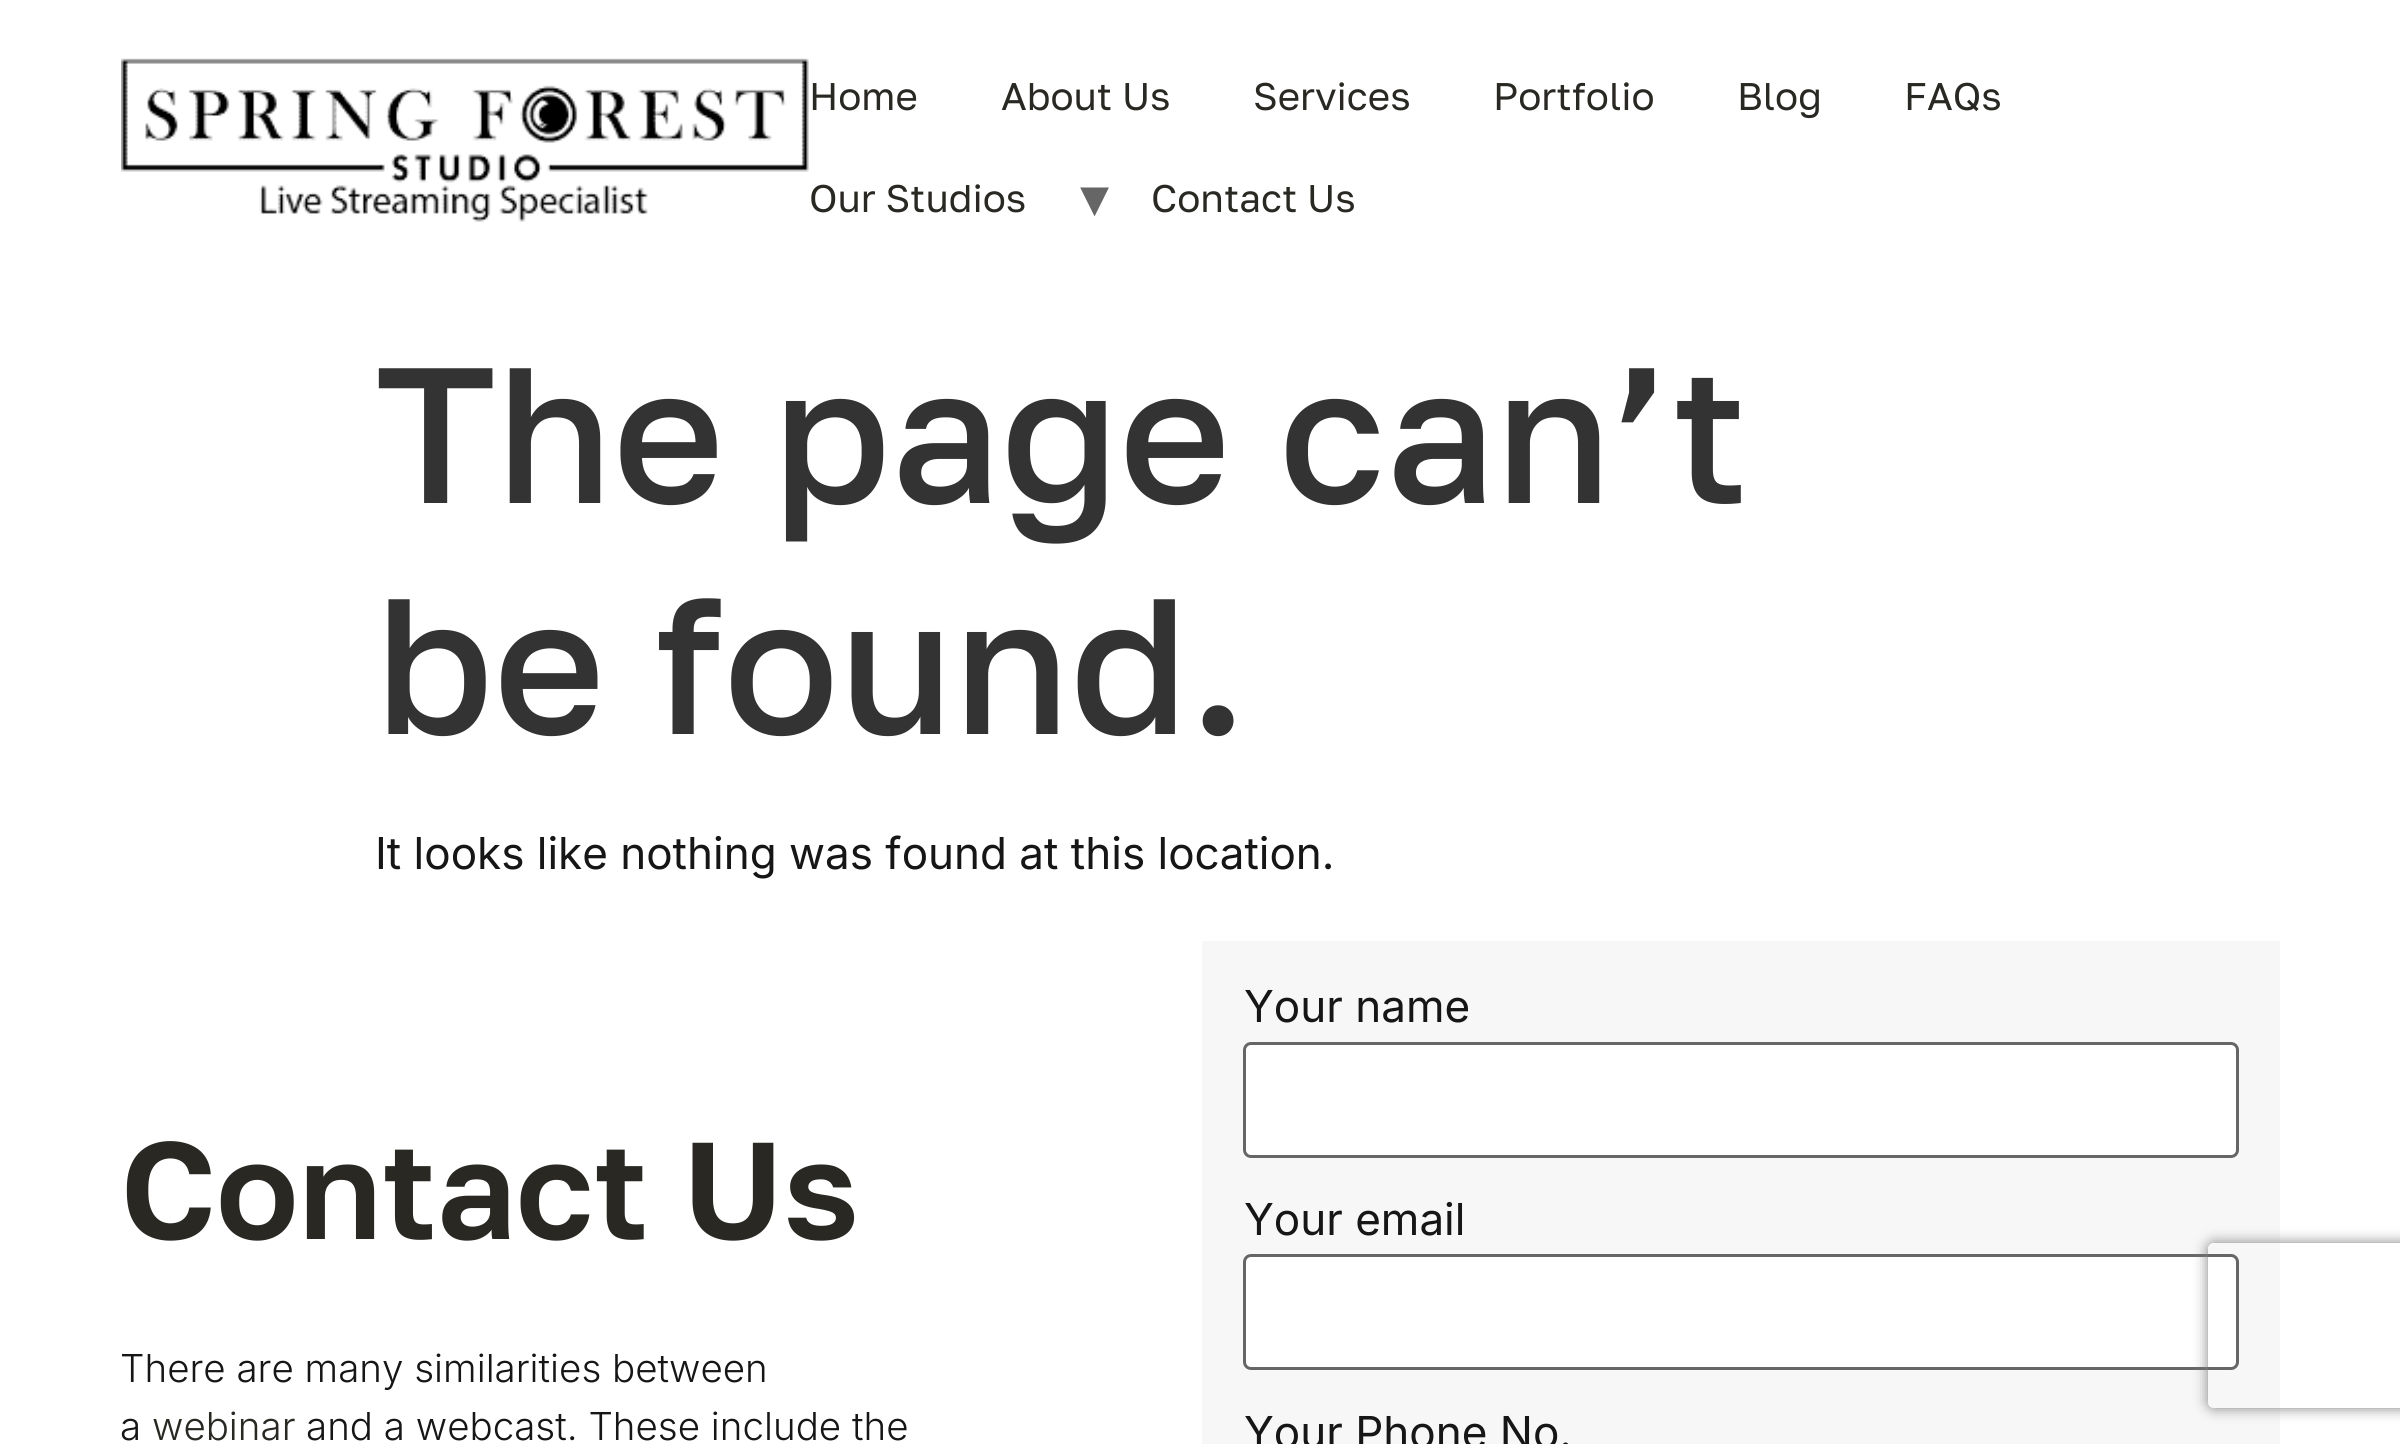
import math
import cairo

surface = cairo.ImageSurface(cairo.FORMAT_RGB24, 2400, 1444)
c = cairo.Context(surface)
options = cairo.FontOptions()
options.set_hint_metrics(cairo.HINT_METRICS_OFF)
options.set_hint_style(cairo.HINT_STYLE_NONE)
c.set_font_options(options)
c.set_miter_limit(4)
def C(code):
 c.set_source_rgb(*(v / 255 for v in bytes.fromhex(code[-6:])))
def F(family, size, italic, bold):
 c.select_font_face(family, cairo.FONT_SLANT_ITALIC if italic else cairo.FONT_SLANT_NORMAL, cairo.FONT_WEIGHT_BOLD if bold else cairo.FONT_WEIGHT_NORMAL)
 c.set_font_size(size)
def T(x, y, s):
 c.move_to(x, y)
 c.show_text(s)
def R(x, y, w, h):
 c.rectangle(x, y, w, h)
 c.fill()
def Q(x, y, w, h, r):
 c.new_sub_path()
 for i, (u, v) in enumerate([(x + w - r, y + h - r), (x + r, y + h - r), (x + r, y + r), (x + w - r, y + r)]):
  c.arc(u, v, r, i * math.pi / 2, (i + 1) * math.pi / 2)
 c.close_path()
def S(x, y, w, h, r, blur, alpha):
 c.push_group_with_content(cairo.CONTENT_ALPHA)
 c.set_operator(cairo.OPERATOR_SOURCE)
 for i in range(15, -16, -2):
  e = blur * i / 6
  if min(w, h) + 2 * e > 0:
   c.set_source_rgba(0, 0, 0, alpha * math.erfc((i - 1) / 8.5) / 2)
   Q(x - e, y - e, w + 2 * e, h + 2 * e, max(0, min(r + e + blur * .6, min(w, h) / 2 + e)))
   c.fill()
 c.mask(c.pop_group())
def I(path, x, y, w, h):
 c.save()
 c.set_source_surface(cairo.ImageSurface.create_from_png(path), x, y)
 c.rectangle(x, y, w, h)
 c.fill()
 c.restore()
C('ffffff')
c.paint()
I('1.png',121,58,688,164)
F('Golos Text',38.5,0,0)
C('292823')
T(809,110,'Home')
T(1001,110,'About Us')
T(1253,110,'Services')
T(1493,110,'Portfolio')
T(1737,110,'Blog')
T(1904,110,'FAQs')
T(809,212,'Our Studios')
F('DejaVu Sans',58,0,0)
C('666666')
T(1080,217,'▾')
F('Golos Text',38.5,0,0)
C('292823')
T(1151,212,'Contact Us')
F('Golos Text Medium',192.5,0,0)
C('333333')
T(375,503,'The page can’t')
T(375,734,'be found.')
F('Inter',44,0,0)
C('161616')
T(375,869,'It looks like nothing was found at this location.')
F('Golos Text SemiBold',137.5,0,0)
C('292823')
T(120,1239,'Contact Us')
F('Inter Light',38.5,0,0)
C('161616')
T(120,1382,'There are many similarities between')
T(120,1440,'a')
C('292823')
T(152,1440,'webinar')
C('161616')
T(306,1440,'and a webcast. These include the')
C('f7f7f7')
R(1202,941,1078,503)
F('Inter',44,0,0)
C('161616')
T(1244,1022,'Your name')
C('ffffff')
Q(1244.5,1043.5,993,113,6.5)
c.fill_preserve()
C('666666')
c.set_line_width(3)
c.stroke()
C('161616')
T(1244,1235,'Your email')
C('ffffff')
Q(1244.5,1255.5,993,113,6.5)
c.fill_preserve()
C('666666')
c.stroke()
C('161616')
T(1244,1448,'Your Phone No.')
c.save()
c.set_fill_rule(cairo.FILL_RULE_EVEN_ODD)
c.new_path()
c.move_to(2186,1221)
c.line_to(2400,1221)
c.line_to(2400,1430)
c.line_to(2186,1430)
c.close_path()
c.move_to(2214,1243)
c.line_to(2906,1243)
c.curve_to(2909.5,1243,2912,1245.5,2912,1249)
c.line_to(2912,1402)
c.curve_to(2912,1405.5,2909.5,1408,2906,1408)
c.line_to(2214,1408)
c.curve_to(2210.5,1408,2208,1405.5,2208,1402)
c.line_to(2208,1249)
c.curve_to(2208,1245.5,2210.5,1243,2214,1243)
c.close_path()
c.clip()
C('808080')
S(2208,1243,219,165,6,7,1)
c.restore()
surface.write_to_png('o.png')
